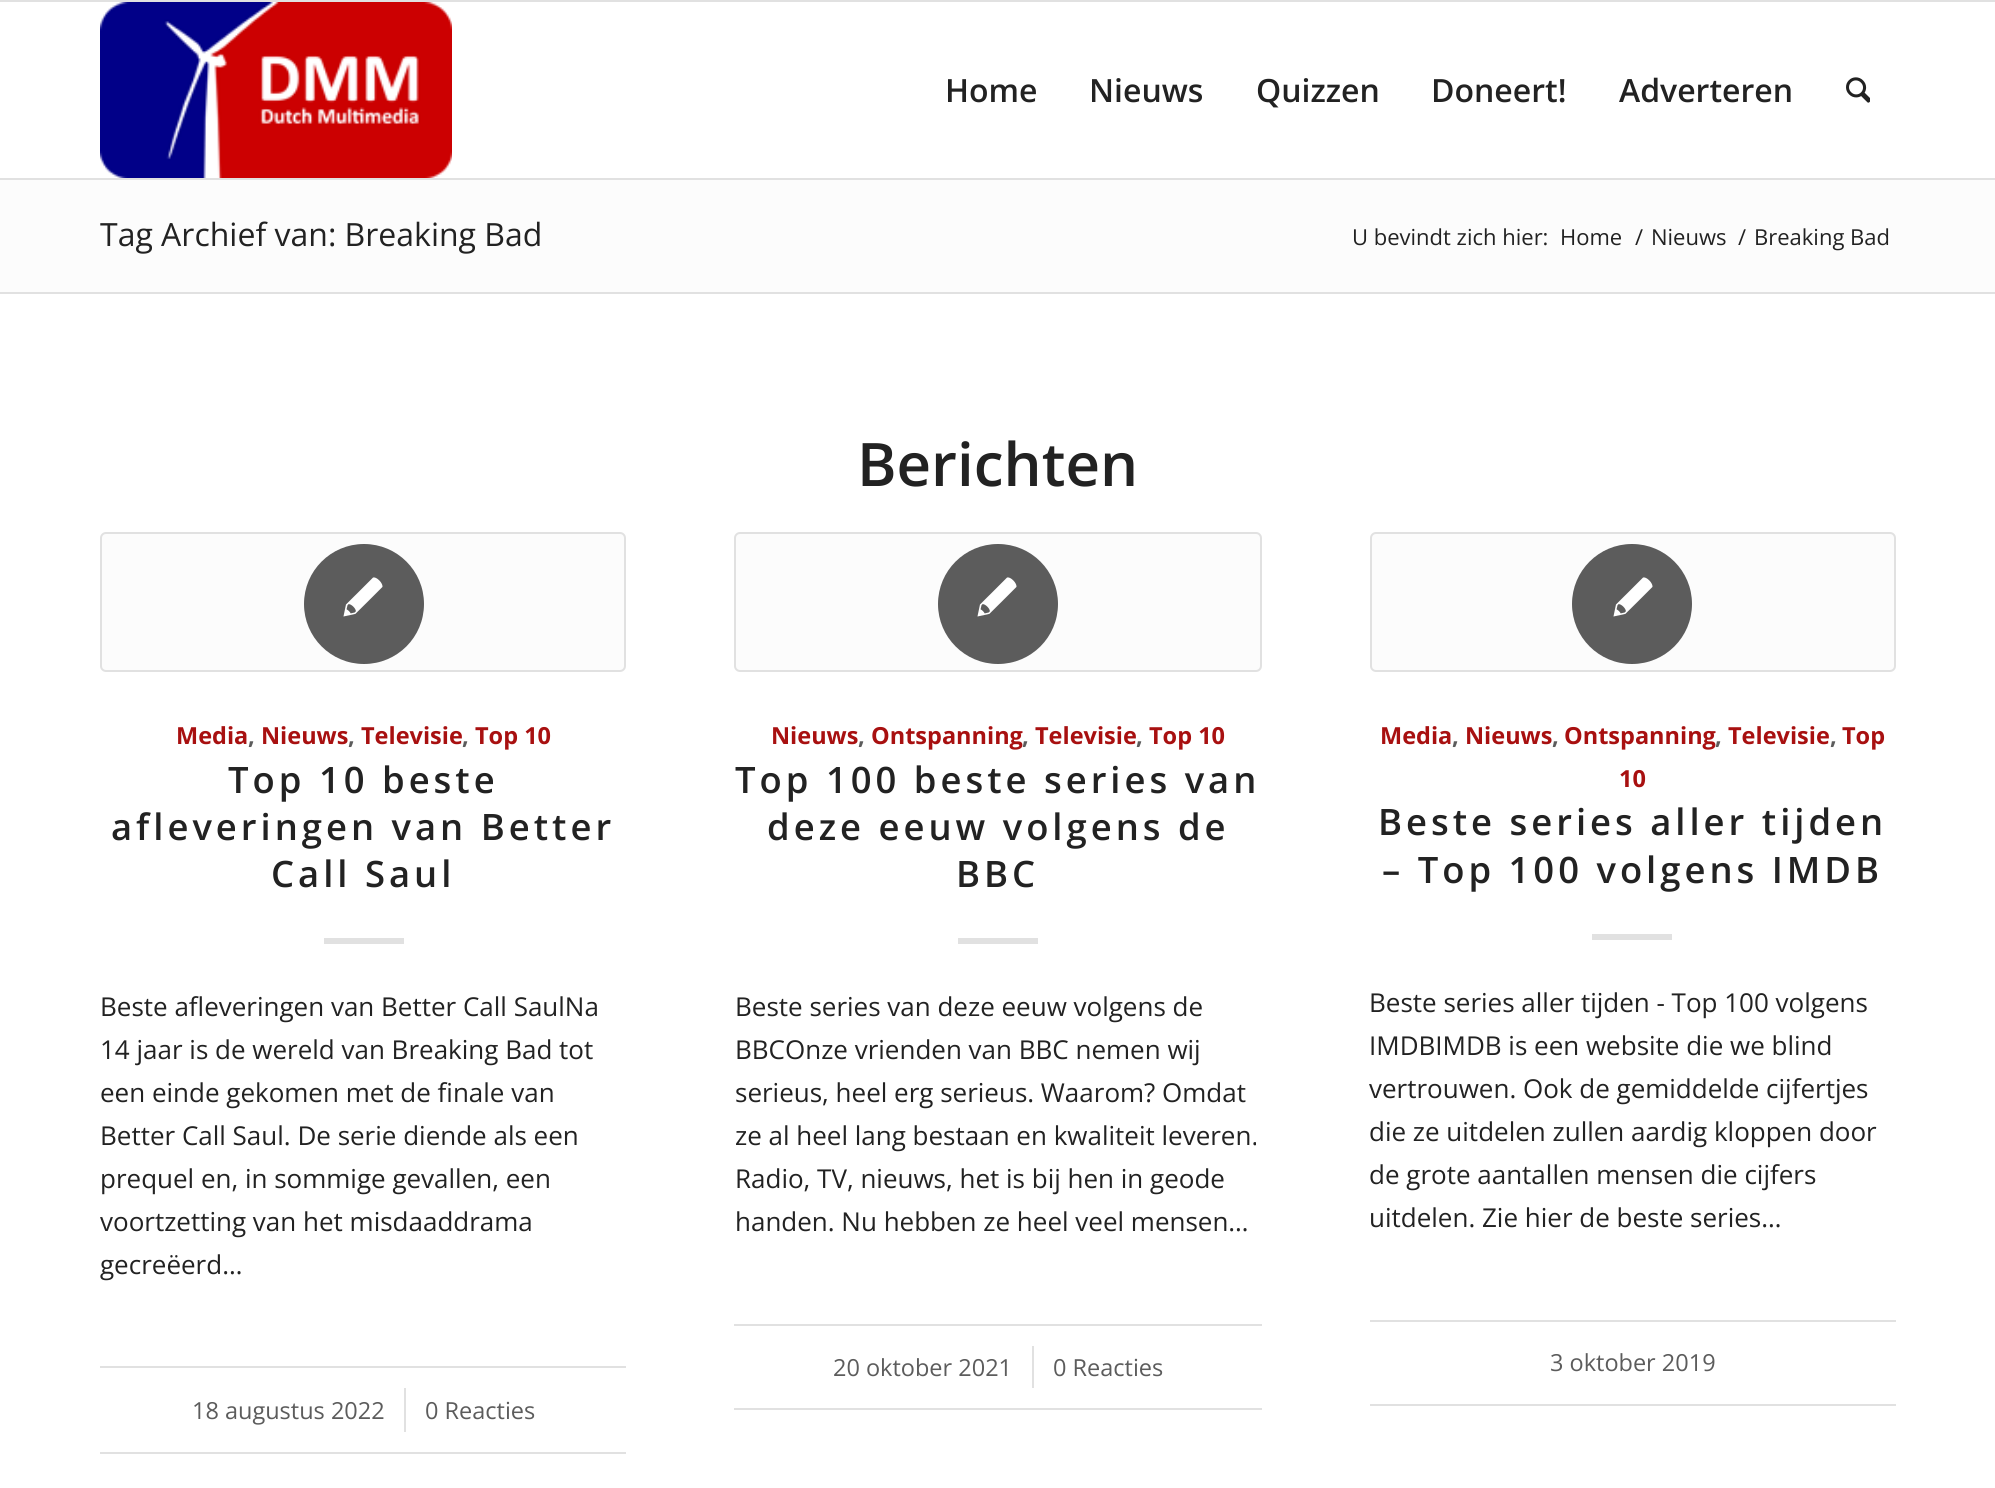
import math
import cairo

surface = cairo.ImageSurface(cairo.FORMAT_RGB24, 1995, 1488)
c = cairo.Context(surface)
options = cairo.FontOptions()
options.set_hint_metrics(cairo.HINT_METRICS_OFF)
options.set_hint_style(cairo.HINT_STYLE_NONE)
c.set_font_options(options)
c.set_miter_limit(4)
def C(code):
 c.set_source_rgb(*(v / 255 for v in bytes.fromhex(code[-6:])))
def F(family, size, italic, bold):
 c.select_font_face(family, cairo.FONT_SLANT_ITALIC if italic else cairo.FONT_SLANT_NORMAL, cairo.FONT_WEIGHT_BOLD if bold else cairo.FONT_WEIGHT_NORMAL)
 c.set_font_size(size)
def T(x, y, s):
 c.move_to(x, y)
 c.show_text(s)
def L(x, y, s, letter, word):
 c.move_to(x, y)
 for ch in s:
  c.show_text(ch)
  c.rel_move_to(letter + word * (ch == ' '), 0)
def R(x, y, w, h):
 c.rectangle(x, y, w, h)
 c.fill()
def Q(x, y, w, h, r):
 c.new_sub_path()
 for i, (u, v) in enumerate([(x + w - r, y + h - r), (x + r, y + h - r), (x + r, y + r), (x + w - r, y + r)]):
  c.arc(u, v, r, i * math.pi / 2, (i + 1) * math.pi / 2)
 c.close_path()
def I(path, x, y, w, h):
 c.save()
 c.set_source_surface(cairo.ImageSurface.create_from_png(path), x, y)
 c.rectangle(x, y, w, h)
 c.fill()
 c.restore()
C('ffffff')
c.paint()
C('e1e1e1')
R(0,0,1995,2)
R(0,178,1995,2)
I('1.png',100,2,352,176)
F('Open Sans SemiBold',32,0,0)
C('222222')
T(945,102,'Home')
T(1089,102,'Nieuws')
T(1256,102,'Quizzen')
T(1431,102,'Doneert!')
T(1619,102,'Adverteren')
I('2.png',1846,77,24,26)
C('fcfcfc')
R(0,180,1995,112)
F('Open Sans',32,0,0)
C('222222')
T(100,246,'Tag Archief van: Breaking Bad')
F('Open Sans',22,0,0)
T(1352,245,'U bevindt zich hier:')
T(1560,245,'Home')
T(1635,245,'/')
T(1651,245,'Nieuws')
T(1738,245,'/')
T(1754,245,'Breaking Bad')
C('e1e1e1')
R(0,292,1995,2)
F('Open Sans SemiBold',60,0,0)
C('222222')
T(857,486,'Berichten')
C('fcfcfc')
Q(101,533,524,138,5)
c.fill_preserve()
C('e1e1e1')
c.stroke()
C('5c5c5c')
c.arc(364,604,60,0,2 * math.pi)
c.fill()
I('3.png',343,577,40,40)
F('Open Sans',23.5,0,1)
C('a81010')
T(176,744,'Media')
C('5c5c5c')
T(248,744,',')
C('a81010')
T(261,744,'Nieuws')
C('5c5c5c')
T(348,744,',')
C('a81010')
T(361,744,'Televisie')
C('5c5c5c')
T(462,744,',')
C('a81010')
T(475,744,'Top 10')
F('Open Sans SemiBold',36.4,0,0)
C('222222')
L(228,793,'Top 10 beste',4,0)
L(111,840,'afleveringen van Better',4,0)
L(271,887,'Call Saul',4,0)
C('e1e1e1')
R(324,938,80,6)
F('Open Sans',26,0,0)
C('222222')
T(100,1016,'Beste afleveringen van Better Call SaulNa')
T(100,1059,'14 jaar is de wereld van Breaking Bad tot')
T(100,1102,'een einde gekomen met de finale van')
T(100,1145,'Better Call Saul. De serie diende als een')
T(100,1188,'prequel en, in sommige gevallen, een')
T(100,1231,'voortzetting van het misdaaddrama')
T(100,1274,'gecreëerd…')
C('e1e1e1')
R(100,1366,526,2)
R(100,1452,526,2)
F('Open Sans',23.5,0,0)
C('5c5c5c')
T(192,1419,'18 augustus 2022')
C('e1e1e1')
R(404,1388,2,44)
C('5c5c5c')
T(425,1419,'0 Reacties')
C('fcfcfc')
Q(735,533,526,138,5)
c.fill_preserve()
C('e1e1e1')
c.stroke()
C('5c5c5c')
c.arc(998,604,60,0,2 * math.pi)
c.fill()
I('3.png',977,577,40,40)
F('Open Sans',23.5,0,1)
C('a81010')
T(771,744,'Nieuws')
C('5c5c5c')
T(858,744,',')
C('a81010')
T(871,744,'Ontspanning')
C('5c5c5c')
T(1022,744,',')
C('a81010')
T(1035,744,'Televisie')
C('5c5c5c')
T(1136,744,',')
C('a81010')
T(1149,744,'Top 10')
F('Open Sans SemiBold',36.4,0,0)
C('222222')
L(735,793,'Top 100 beste series van',4,0)
L(767,840,'deze eeuw volgens de',4,0)
L(956,887,'BBC',4,0)
C('e1e1e1')
R(958,938,80,6)
F('Open Sans',26,0,0)
C('222222')
T(735,1016,'Beste series van deze eeuw volgens de')
T(735,1059,'BBCOnze vrienden van BBC nemen wij')
T(735,1102,'serieus, heel erg serieus. Waarom? Omdat')
T(735,1145,'ze al heel lang bestaan en kwaliteit leveren.')
T(735,1188,'Radio, TV, nieuws, het is bij hen in geode')
T(735,1231,'handen. Nu hebben ze heel veel mensen…')
C('e1e1e1')
R(734,1324,528,2)
R(734,1408,528,2)
F('Open Sans',23.5,0,0)
C('5c5c5c')
T(833,1376,'20 oktober 2021')
C('e1e1e1')
R(1032,1346,2,42)
C('5c5c5c')
T(1053,1376,'0 Reacties')
C('fcfcfc')
Q(1371,533,524,138,5)
c.fill_preserve()
C('e1e1e1')
c.stroke()
C('5c5c5c')
c.arc(1632,604,60,0,2 * math.pi)
c.fill()
I('3.png',1613,577,40,40)
F('Open Sans',23.5,0,1)
C('a81010')
T(1380,744,'Media')
C('5c5c5c')
T(1452,744,',')
C('a81010')
T(1465,744,'Nieuws')
C('5c5c5c')
T(1552,744,',')
C('a81010')
T(1564,744,'Ontspanning')
C('5c5c5c')
T(1715,744,',')
C('a81010')
T(1728,744,'Televisie')
C('5c5c5c')
T(1830,744,',')
C('a81010')
T(1842,744,'Top')
T(1619,787,'10')
F('Open Sans SemiBold',36.4,0,0)
C('222222')
L(1378,835,'Beste series aller tijden',4,0)
L(1382,883,'– Top 100 volgens IMDB',4,0)
C('e1e1e1')
R(1592,934,80,6)
F('Open Sans',26,0,0)
C('222222')
T(1369,1012,'Beste series aller tijden - Top 100 volgens')
T(1369,1055,'IMDBIMDB is een website die we blind')
T(1369,1098,'vertrouwen. Ook de gemiddelde cijfertjes')
T(1369,1141,'die ze uitdelen zullen aardig kloppen door')
T(1369,1184,'de grote aantallen mensen die cijfers')
T(1369,1227,'uitdelen. Zie hier de beste series…')
C('e1e1e1')
R(1370,1320,526,2)
R(1370,1404,526,2)
F('Open Sans',23.5,0,0)
C('5c5c5c')
T(1550,1371,'3 oktober 2019')
surface.write_to_png('o.png')
